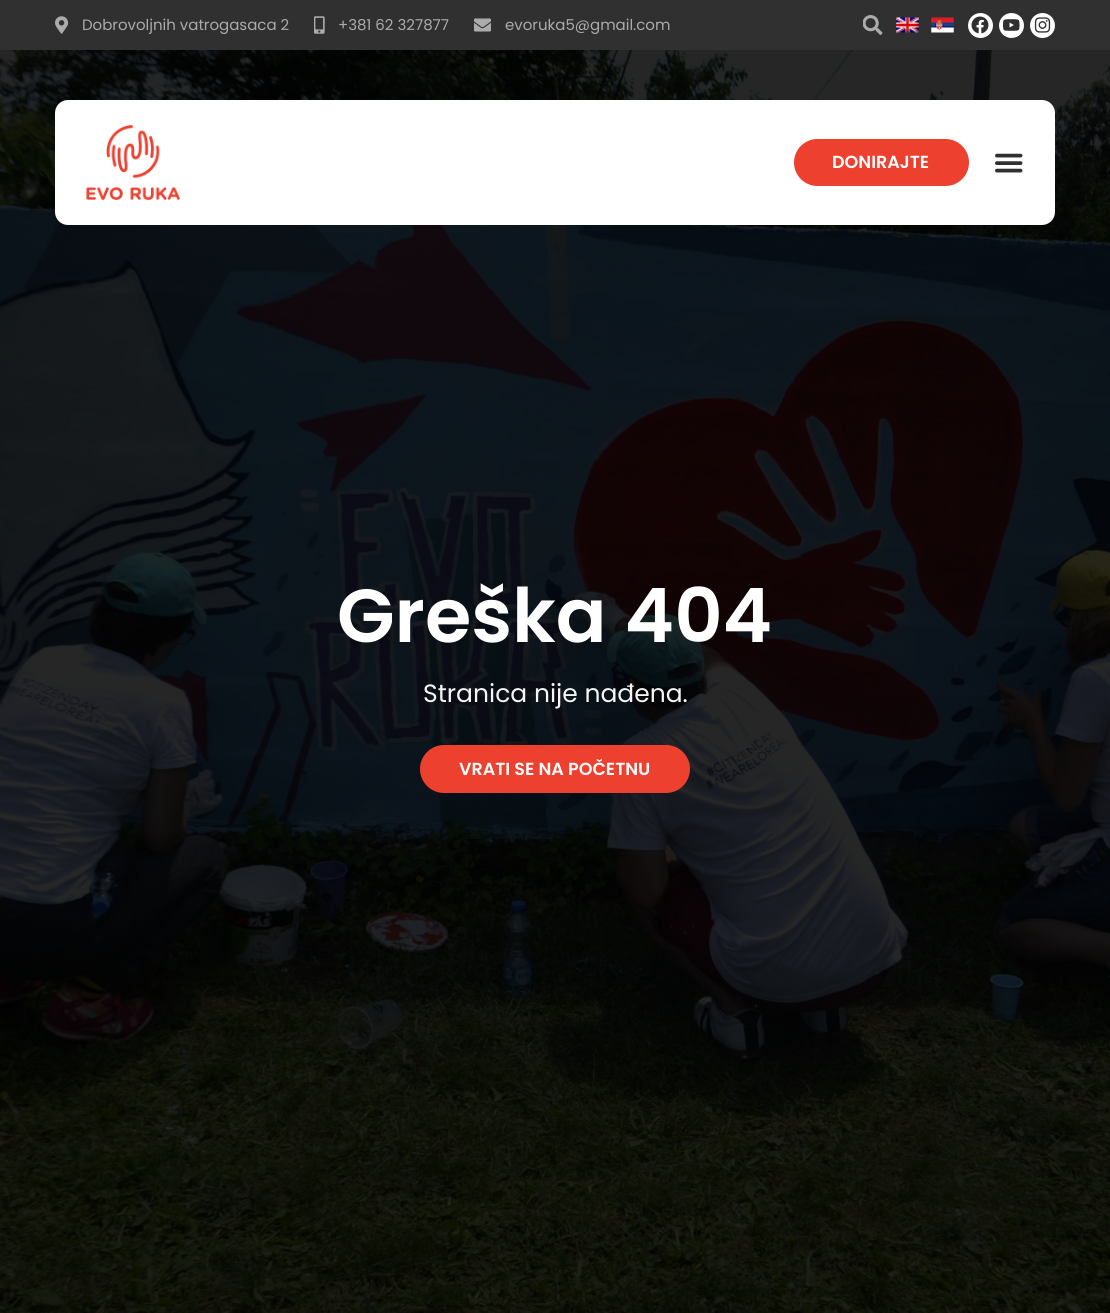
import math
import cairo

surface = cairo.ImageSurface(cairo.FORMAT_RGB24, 1110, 1313)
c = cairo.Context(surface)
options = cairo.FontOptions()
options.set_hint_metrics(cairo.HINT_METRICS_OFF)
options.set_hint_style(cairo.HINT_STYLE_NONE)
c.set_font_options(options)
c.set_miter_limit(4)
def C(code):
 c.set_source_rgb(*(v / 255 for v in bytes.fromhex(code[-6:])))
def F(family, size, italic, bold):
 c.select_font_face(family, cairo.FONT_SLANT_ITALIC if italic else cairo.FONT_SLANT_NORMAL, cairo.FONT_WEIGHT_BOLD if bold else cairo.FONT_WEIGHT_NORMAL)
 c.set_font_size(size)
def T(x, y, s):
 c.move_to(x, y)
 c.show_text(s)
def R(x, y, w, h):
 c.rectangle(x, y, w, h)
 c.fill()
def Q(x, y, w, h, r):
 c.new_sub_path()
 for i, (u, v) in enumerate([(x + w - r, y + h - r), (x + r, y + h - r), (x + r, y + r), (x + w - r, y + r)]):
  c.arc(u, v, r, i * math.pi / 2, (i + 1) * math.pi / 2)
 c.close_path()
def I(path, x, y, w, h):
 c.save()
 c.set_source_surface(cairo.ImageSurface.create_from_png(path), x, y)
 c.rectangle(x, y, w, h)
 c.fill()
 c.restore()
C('ffffff')
c.paint()
C('303030')
R(0,0,1110,50)
I('1.png',55,16,14,18)
F('Poppins',15,0,0)
C('ababab')
T(82,30,'Dobrovoljnih vatrogasaca 2')
I('2.png',314,16,11,18)
T(338,30,'+381 62 327877')
I('3.png',474,18,17,14)
T(505,30,'evoruka5@gmail.com')
I('4.png',863,15,20,20)
I('5.png',896,17,23,16)
I('6.png',931,17,23,16)
C('ffffff')
c.arc(980.5,25.5,12.5,0,2 * math.pi)
c.fill()
I('7.png',971,16,18,18)
c.arc(1011.5,25.5,12.5,0,2 * math.pi)
c.fill()
I('8.png',1003,19,17,12)
c.arc(1042.5,25.5,12.5,0,2 * math.pi)
c.fill()
I('9.png',1034,17,17,16)
I('12.png',0,50,1110,1263)
Q(55,100,1000,125,13)
c.fill()
I('10.png',86,125,94,75)
C('ee402f')
Q(794,139,175,47,23.5)
c.fill()
F('Poppins SemiBold',17.5,0,0)
C('ffffff')
T(832,168,'DONIRAJTE')
I('11.png',995,153,28,20)
F('Poppins SemiBold',75,0,0)
T(337,642,'Greška 404')
F('Poppins',25,0,0)
C('f5f5f5')
T(423,702,'Stranica nije nađena.')
C('ee402f')
Q(420,745,270,48,24)
c.fill()
F('Poppins SemiBold',17.5,0,0)
C('ffffff')
T(459,775,'VRATI SE NA POČETNU')
surface.write_to_png('o.png')
